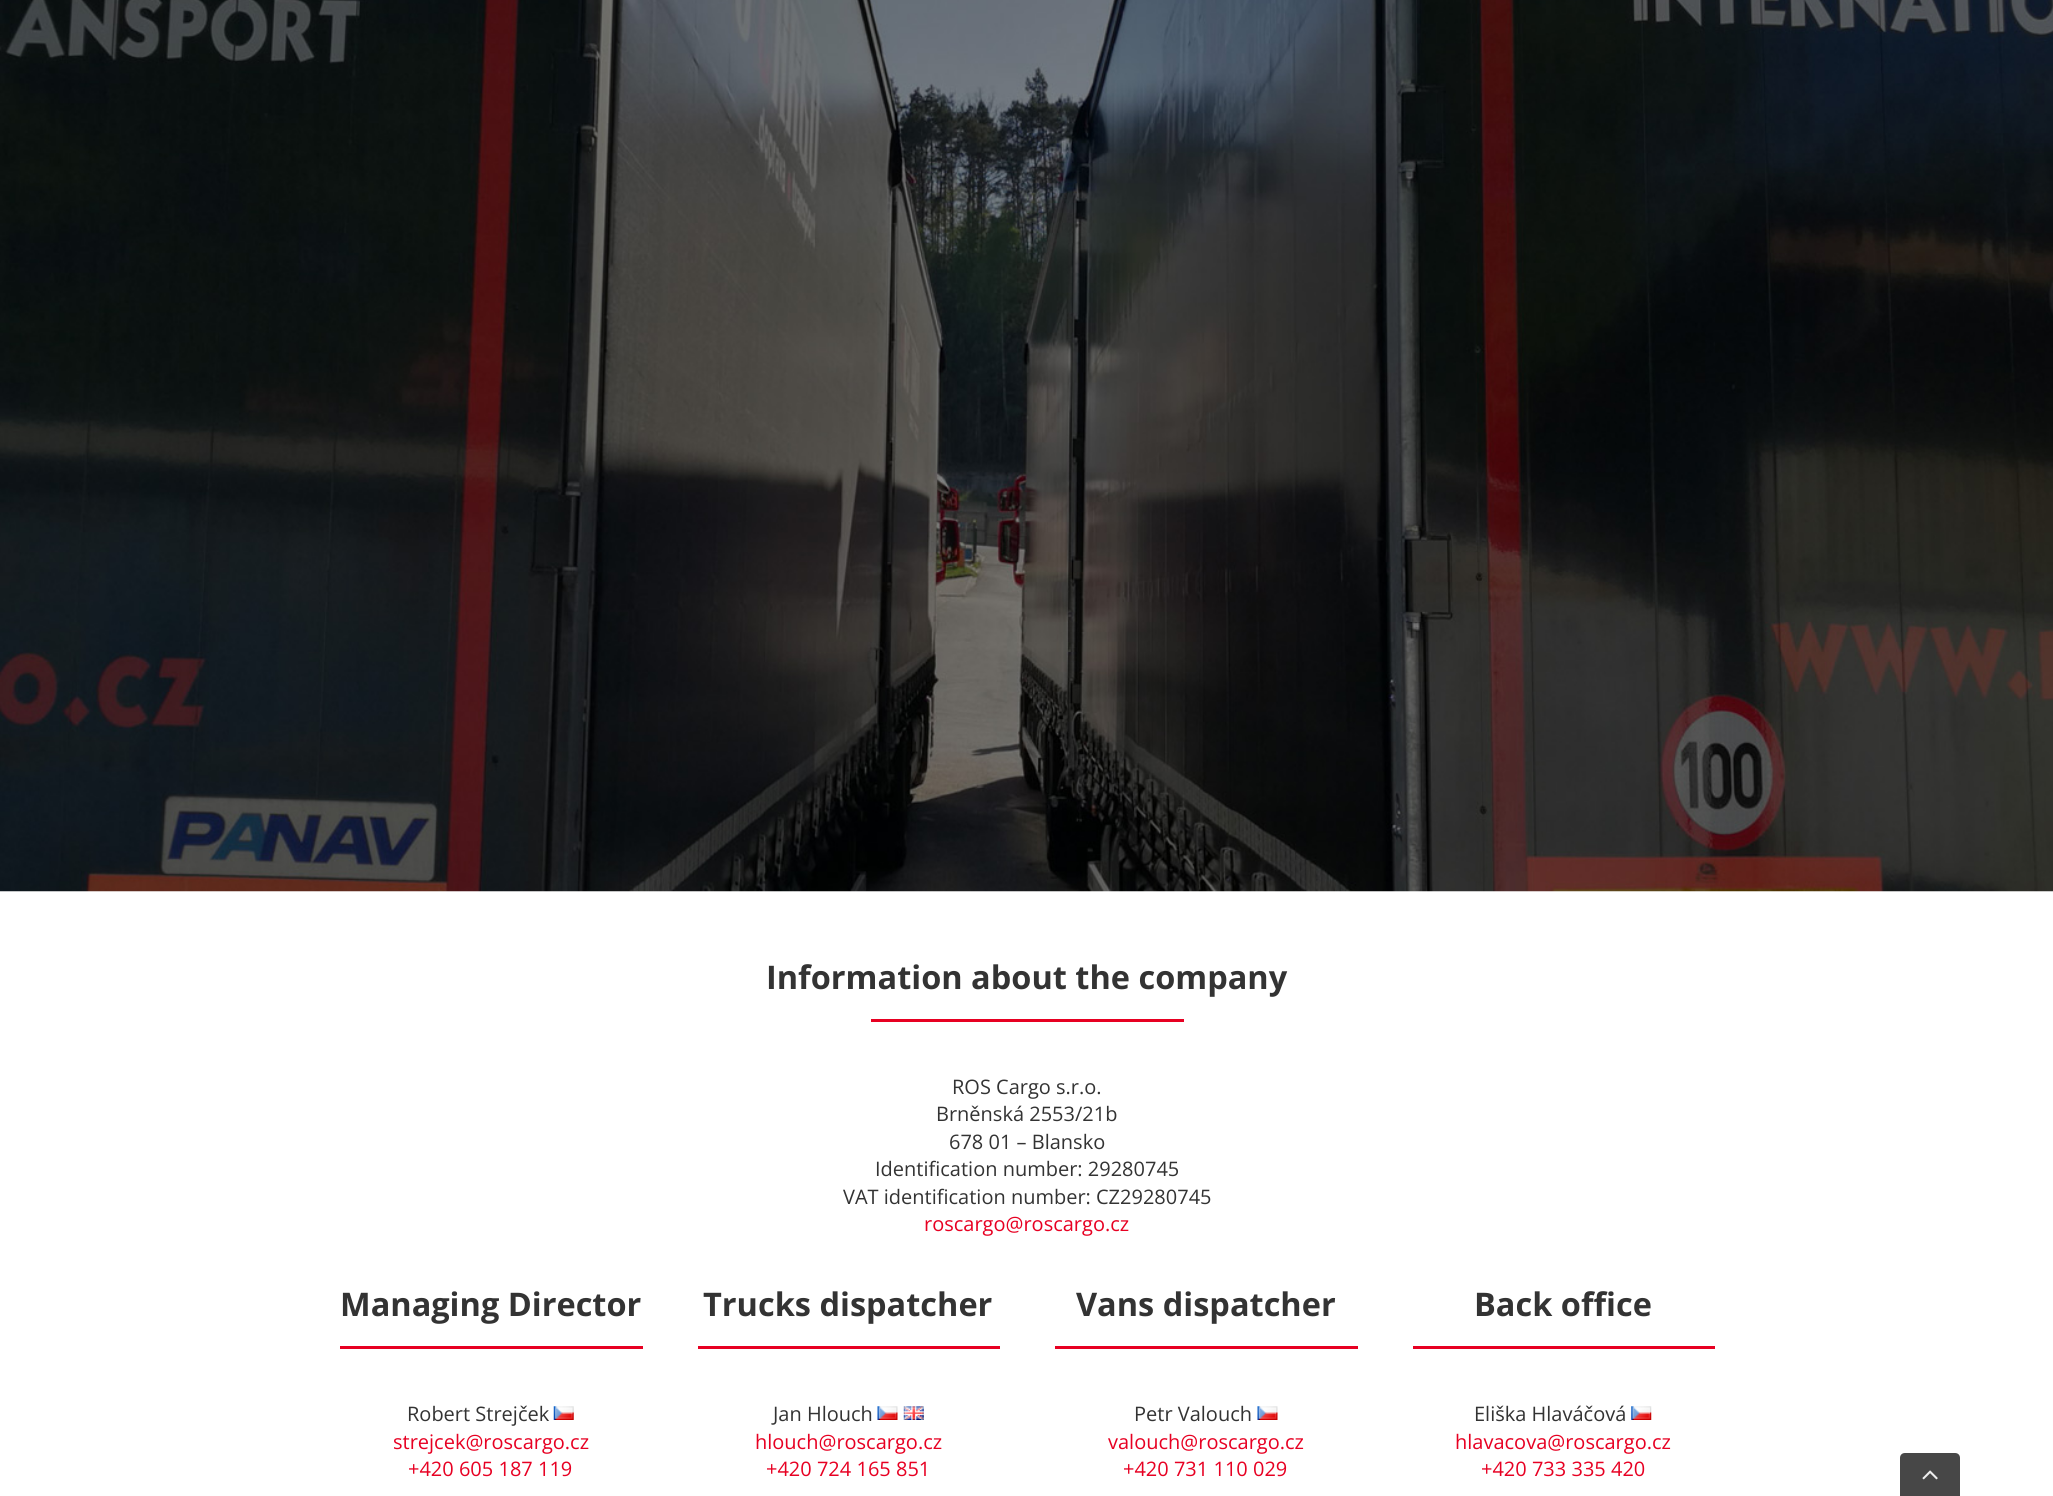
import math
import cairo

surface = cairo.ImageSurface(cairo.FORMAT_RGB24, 2053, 1496)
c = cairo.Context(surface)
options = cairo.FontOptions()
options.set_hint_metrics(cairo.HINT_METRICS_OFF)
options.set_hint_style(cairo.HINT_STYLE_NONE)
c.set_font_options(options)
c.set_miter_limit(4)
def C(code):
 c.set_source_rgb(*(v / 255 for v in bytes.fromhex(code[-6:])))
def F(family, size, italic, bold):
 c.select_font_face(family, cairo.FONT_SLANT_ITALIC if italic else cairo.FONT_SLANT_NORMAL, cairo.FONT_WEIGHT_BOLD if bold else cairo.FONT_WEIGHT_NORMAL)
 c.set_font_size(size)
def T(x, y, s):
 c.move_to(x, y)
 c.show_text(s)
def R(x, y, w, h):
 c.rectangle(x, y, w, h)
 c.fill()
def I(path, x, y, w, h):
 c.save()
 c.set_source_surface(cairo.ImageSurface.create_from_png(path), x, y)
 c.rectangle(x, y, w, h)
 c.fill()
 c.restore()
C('ffffff')
c.paint()
I('1.png',0,0,2053,892)
F('Open Sans',32.5,0,1)
C('333333')
T(766,989,'Information about the company')
C('e70022')
R(871,1019,313,3)
F('Open Sans',20,0,0)
C('333333')
T(952,1094,'ROS Cargo s.r.o.')
T(936,1121,'Brněnská 2553/21b')
T(949,1149,'678 01 – Blansko')
T(875,1176,'Identification number: 29280745')
T(843,1204,'VAT identification number: CZ29280745')
C('e70022')
T(924,1231,'roscargo@roscargo.cz')
F('Open Sans',32.5,0,1)
C('333333')
T(340,1316,'Managing Director')
C('e70022')
R(340,1346,303,3)
F('Open Sans',20,0,0)
C('333333')
T(407,1421,'Robert Strejček')
I('2.png',553,1406,21,14)
C('e70022')
T(393,1449,'strejcek@roscargo.cz')
T(408,1476,'+420 605 187 119')
F('Open Sans',32.5,0,1)
C('333333')
T(703,1316,'Trucks dispatcher')
C('e70022')
R(698,1346,302,3)
F('Open Sans',20,0,0)
C('333333')
T(773,1421,'Jan Hlouch')
I('3.png',877,1406,21,14)
I('4.png',903,1406,21,14)
C('e70022')
T(755,1449,'hlouch@roscargo.cz')
T(766,1476,'+420 724 165 851')
F('Open Sans',32.5,0,1)
C('333333')
T(1076,1316,'Vans dispatcher')
C('e70022')
R(1055,1346,303,3)
F('Open Sans',20,0,0)
C('333333')
T(1134,1421,'Petr Valouch')
I('5.png',1257,1406,21,14)
C('e70022')
T(1108,1449,'valouch@roscargo.cz')
T(1123,1476,'+420 731 110 029')
F('Open Sans',32.5,0,1)
C('333333')
T(1474,1316,'Back office')
C('e70022')
R(1413,1346,302,3)
F('Open Sans',20,0,0)
C('333333')
T(1474,1421,'Eliška Hlaváčová')
I('6.png',1631,1406,21,14)
C('e70022')
T(1455,1449,'hlavacova@roscargo.cz')
T(1481,1476,'+420 733 335 420')
C('474747')
c.new_path()
c.move_to(1905,1453)
c.line_to(1955,1453)
c.curve_to(1958,1453,1960,1455,1960,1458)
c.line_to(1960,1496)
c.line_to(1900,1496)
c.line_to(1900,1458)
c.curve_to(1900,1455,1902,1453,1905,1453)
c.close_path()
c.fill()
I('7.png',1922,1470,16,10)
surface.write_to_png('o.png')
